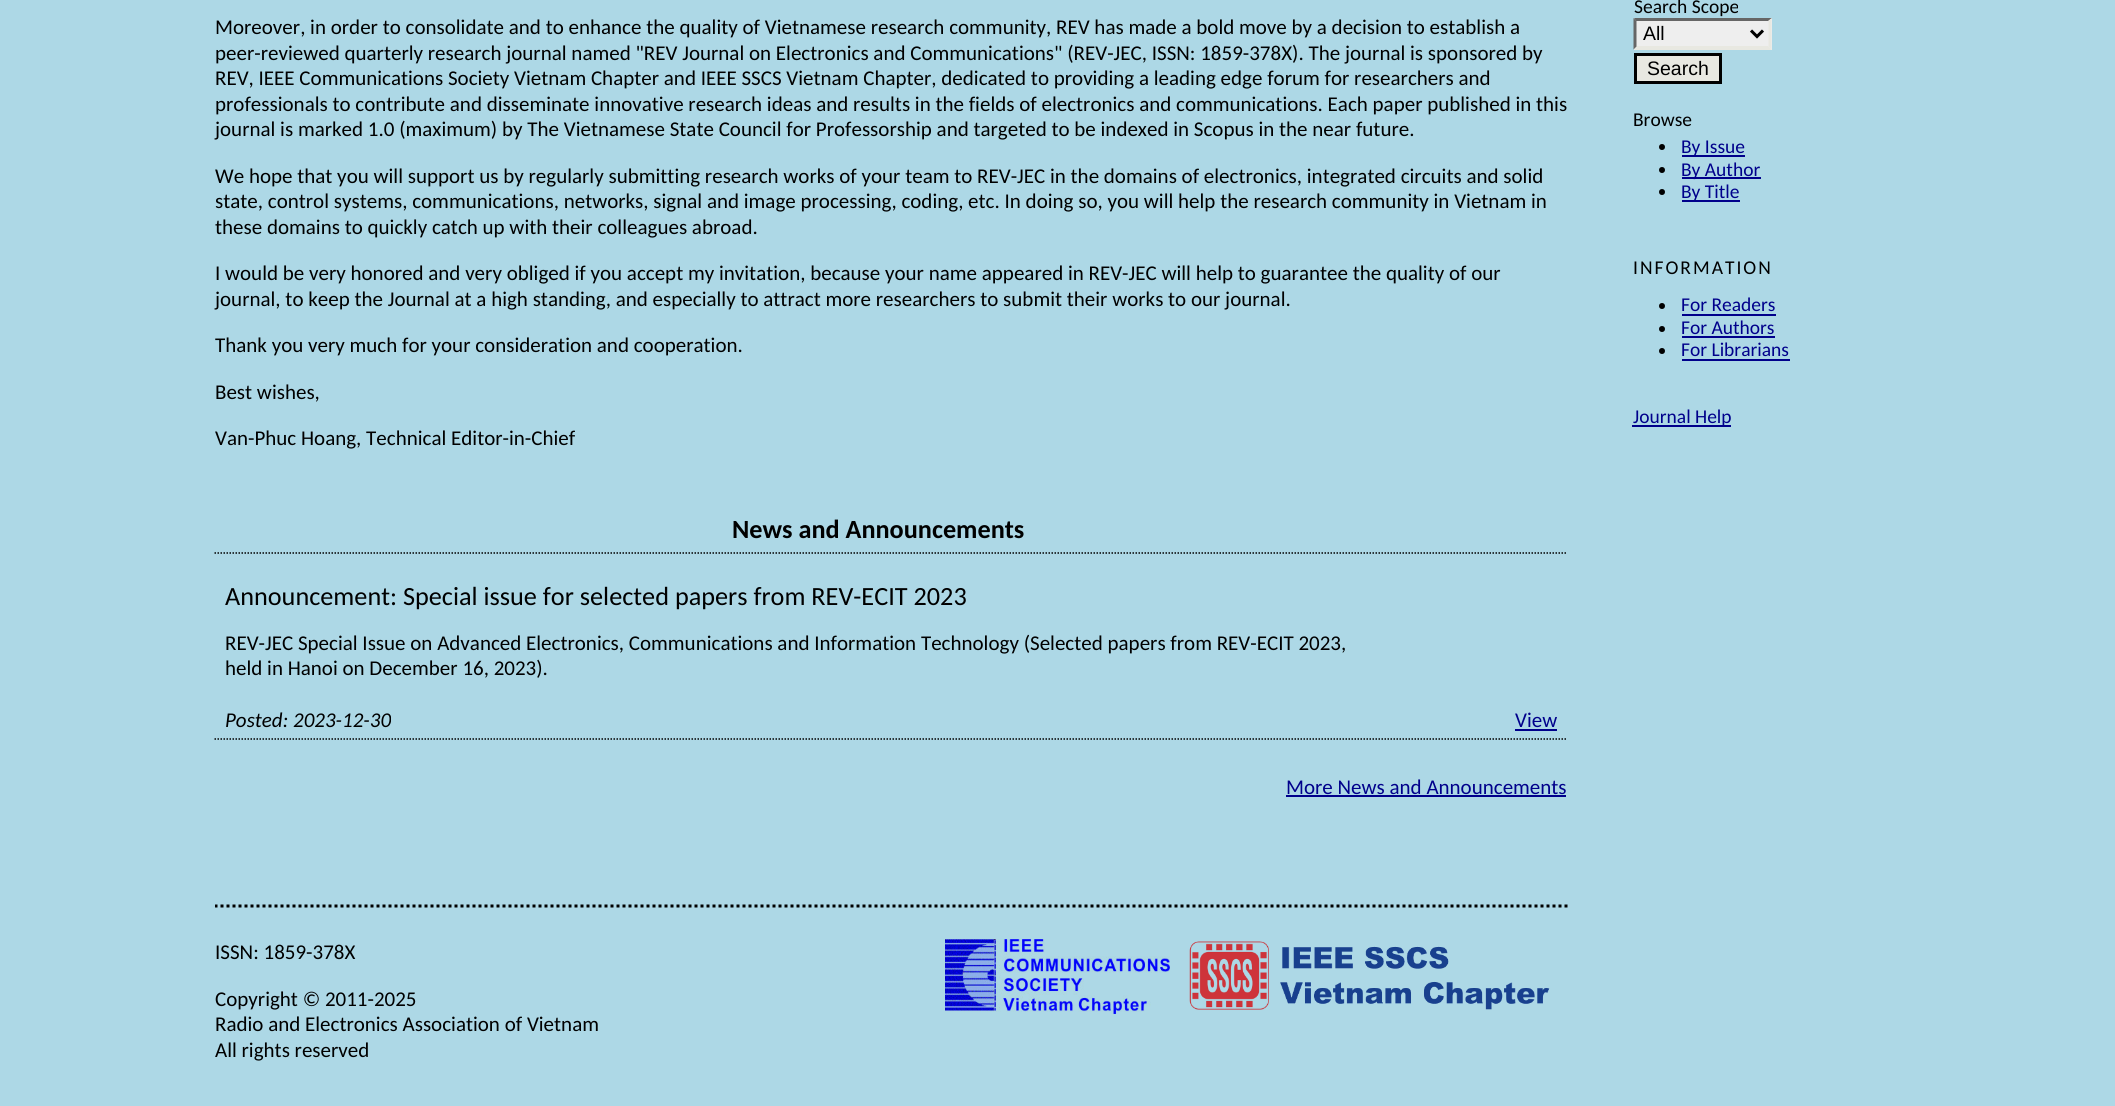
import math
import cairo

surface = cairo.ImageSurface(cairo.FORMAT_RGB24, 2115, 1106)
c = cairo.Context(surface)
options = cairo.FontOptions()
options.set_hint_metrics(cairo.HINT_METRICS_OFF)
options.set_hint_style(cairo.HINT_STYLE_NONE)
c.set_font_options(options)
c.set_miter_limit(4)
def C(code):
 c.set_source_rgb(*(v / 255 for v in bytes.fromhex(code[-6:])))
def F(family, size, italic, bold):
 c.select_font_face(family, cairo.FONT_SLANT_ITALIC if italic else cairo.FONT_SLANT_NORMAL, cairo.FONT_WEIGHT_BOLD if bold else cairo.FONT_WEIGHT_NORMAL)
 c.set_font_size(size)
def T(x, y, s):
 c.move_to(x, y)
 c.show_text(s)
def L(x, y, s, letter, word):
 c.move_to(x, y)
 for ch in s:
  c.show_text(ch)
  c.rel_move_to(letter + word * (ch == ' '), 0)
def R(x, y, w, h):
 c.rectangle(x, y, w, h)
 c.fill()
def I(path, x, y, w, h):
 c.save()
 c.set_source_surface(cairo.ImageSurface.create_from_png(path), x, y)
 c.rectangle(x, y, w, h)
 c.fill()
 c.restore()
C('add8e6')
c.paint()
F('Carlito',21,0,0)
C('000000')
T(215,34,'Moreover, in order to consolidate and to enhance the quality of Vietnamese research community, REV has made a bold move by a decision to establish a')
T(215,60,'peer-reviewed quarterly research journal named "REV Journal on Electronics and Communications" (REV-JEC, ISSN: 1859-378X). The journal is sponsored by')
T(215,85,'REV, IEEE Communications Society Vietnam Chapter and IEEE SSCS Vietnam Chapter, dedicated to providing a leading edge forum for researchers and')
T(215,111,'professionals to contribute and disseminate innovative research ideas and results in the fields of electronics and communications. Each paper published in this')
T(215,136,'journal is marked 1.0 (maximum) by The Vietnamese State Council for Professorship and targeted to be indexed in Scopus in the near future.')
T(215,183,'We hope that you will support us by regularly submitting research works of your team to REV-JEC in the domains of electronics, integrated circuits and solid')
T(215,208,'state, control systems, communications, networks, signal and image processing, coding, etc. In doing so, you will help the research community in Vietnam in')
T(215,234,'these domains to quickly catch up with their colleagues abroad.')
T(215,280,'I would be very honored and very obliged if you accept my invitation, because your name appeared in REV-JEC will help to guarantee the quality of our')
T(215,306,'journal, to keep the Journal at a high standing, and especially to attract more researchers to submit their works to our journal.')
T(215,352,'Thank you very much for your consideration and cooperation.')
T(215,399,'Best wishes,')
T(215,445,'Van-Phuc Hoang, Technical Editor-in-Chief')
F('Carlito',26.25,0,1)
T(732,538,'News and Announcements')
c.new_path()
c.move_to(214.5,553)
c.line_to(1567.5,553)
c.set_line_width(1.5)
c.set_dash([1.5,1.5])
c.stroke()
F('Carlito',26.25,0,0)
T(225,605,'Announcement: Special issue for selected papers from REV-ECIT 2023')
F('Carlito',21,0,0)
T(225,650,'REV-JEC Special Issue on Advanced Electronics, Communications and Information Technology (Selected papers from REV-ECIT 2023,')
T(225,675,'held in Hanoi on December 16, 2023).')
F('Carlito',21,1,0)
T(225,727,'Posted: 2023-12-30')
F('Carlito',21,0,0)
C('00008b')
T(1515,727,'View')
R(1515,729,42,2)
c.new_path()
c.move_to(214.5,739)
c.line_to(1567.5,739)
C('000000')
c.stroke()
C('00008b')
T(1286,794,'More News and Announcements')
R(1286,795,280,2)
c.save()
c.rectangle(215,0,1353,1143)
c.clip()
c.new_path()
c.move_to(214.5,906)
c.line_to(1567.5,906)
C('000000')
c.set_line_width(3)
c.set_dash([3,3])
c.stroke()
c.restore()
C('000000')
T(215,959,'ISSN: 1859-378X')
T(215,1006,'Copyright © 2011-2025')
T(215,1031,'Radio and Electronics Association of Vietnam')
T(215,1057,'All rights reserved')
I('1.png',945,939,225,75)
I('2.png',1189,941,361,69)
F('Carlito',19.5,0,0)
T(1634,13,'Search Scope')
C('eeeeee')
R(1634,18,138,32)
C('666666')
c.new_path()
c.move_to(1634,18)
c.line_to(1772,18)
c.line_to(1768,21)
c.line_to(1636,21)
c.close_path()
c.fill()
C('e8e8e1')
c.new_path()
c.move_to(1771.5,18)
c.line_to(1771.5,49.5)
c.line_to(1768.5,46.5)
c.line_to(1768.5,21)
c.close_path()
c.fill()
c.new_path()
c.move_to(1772,50)
c.line_to(1634,50)
c.line_to(1636,46)
c.line_to(1768,46)
c.close_path()
c.fill()
C('666666')
c.new_path()
c.move_to(1633.5,49.5)
c.line_to(1633.5,18)
c.line_to(1636.5,21)
c.line_to(1636.5,46.5)
c.close_path()
c.fill()
c.new_path()
c.move_to(1751,30.5)
c.line_to(1757,36.5)
c.line_to(1763,30.5)
C('000000')
c.set_line_width(3)
c.set_dash([])
c.stroke()
F('Liberation Sans',19.5,0,0)
T(1643,40,'All')
C('e8e8e1')
c.rectangle(1635.5,54.5,85,28)
c.fill_preserve()
C('000000')
c.stroke()
T(1647,75,'Search')
F('Carlito',19.5,0,0)
T(1633,126,'Browse')
c.new_path()
c.arc(1662,147,3,0,2 * math.pi)
c.fill()
C('00008b')
R(1682,155,63,2)
T(1681,153,'By Issue')
C('000000')
c.new_path()
c.arc(1662,170,3,0,2 * math.pi)
c.fill()
C('00008b')
R(1682,177,79,2)
T(1681,176,'By Author')
C('000000')
c.new_path()
c.arc(1662,192,3,0,2 * math.pi)
c.fill()
C('00008b')
R(1682,200,58,2)
T(1681,198,'By Title')
C('000000')
L(1633,274,'INFORMATION',2,0)
c.new_path()
c.arc(1662,306,3,0,2 * math.pi)
c.fill()
C('00008b')
T(1681,311,'For Readers')
R(1682,314,94,2)
C('000000')
c.new_path()
c.arc(1662,329,3,0,2 * math.pi)
c.fill()
C('00008b')
T(1681,334,'For Authors')
R(1682,336,93,2)
C('000000')
c.new_path()
c.arc(1662,351,3,0,2 * math.pi)
c.fill()
C('00008b')
T(1681,356,'For Librarians')
R(1682,359,108,2)
R(1632,425,99,2)
T(1633,423,'Journal Help')
surface.write_to_png('o.png')
